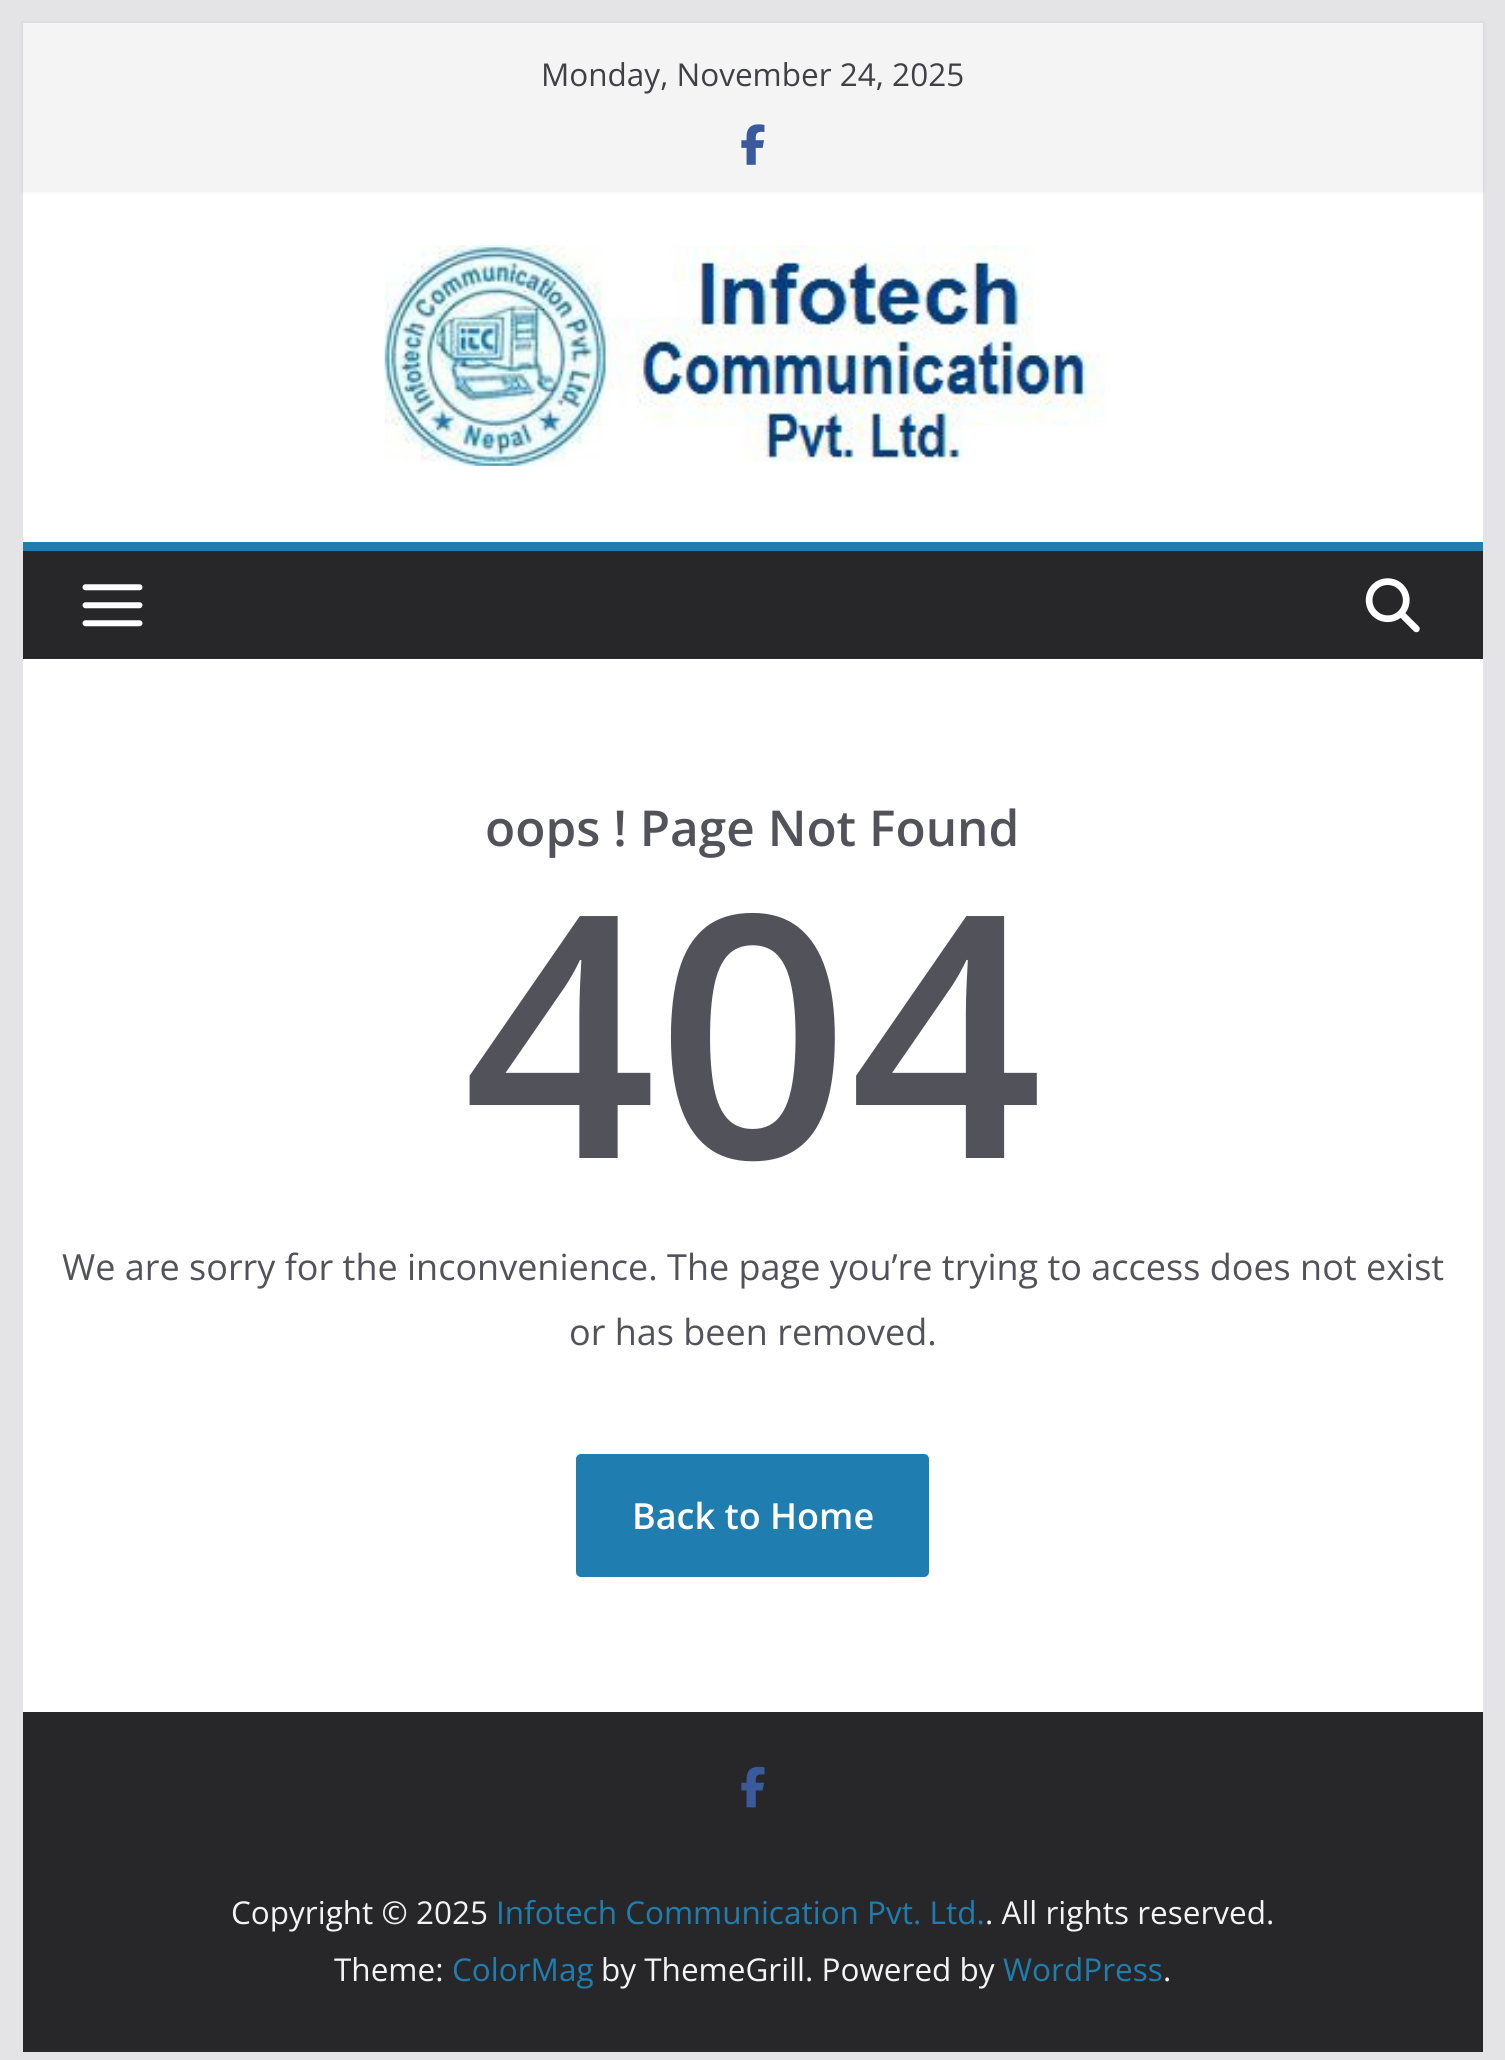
import math
import cairo

surface = cairo.ImageSurface(cairo.FORMAT_RGB24, 1505, 2060)
c = cairo.Context(surface)
options = cairo.FontOptions()
options.set_hint_metrics(cairo.HINT_METRICS_OFF)
options.set_hint_style(cairo.HINT_STYLE_NONE)
c.set_font_options(options)
c.set_miter_limit(4)
def C(code):
 c.set_source_rgb(*(v / 255 for v in bytes.fromhex(code[-6:])))
def F(family, size, italic, bold):
 c.select_font_face(family, cairo.FONT_SLANT_ITALIC if italic else cairo.FONT_SLANT_NORMAL, cairo.FONT_WEIGHT_BOLD if bold else cairo.FONT_WEIGHT_NORMAL)
 c.set_font_size(size)
def T(x, y, s):
 c.move_to(x, y)
 c.show_text(s)
def R(x, y, w, h):
 c.rectangle(x, y, w, h)
 c.fill()
def Q(x, y, w, h, r):
 c.new_sub_path()
 for i, (u, v) in enumerate([(x + w - r, y + h - r), (x + r, y + h - r), (x + r, y + r), (x + w - r, y + r)]):
  c.arc(u, v, r, i * math.pi / 2, (i + 1) * math.pi / 2)
 c.close_path()
def S(x, y, w, h, r, blur, alpha):
 c.push_group_with_content(cairo.CONTENT_ALPHA)
 c.set_operator(cairo.OPERATOR_SOURCE)
 for i in range(15, -16, -2):
  e = blur * i / 6
  if min(w, h) + 2 * e > 0:
   c.set_source_rgba(0, 0, 0, alpha * math.erfc((i - 1) / 8.5) / 2)
   Q(x - e, y - e, w + 2 * e, h + 2 * e, max(0, min(r + e + blur * .6, min(w, h) / 2 + e)))
   c.fill()
 c.mask(c.pop_group())
def I(path, x, y, w, h):
 c.save()
 c.set_source_surface(cairo.ImageSurface.create_from_png(path), x, y)
 c.rectangle(x, y, w, h)
 c.fill()
 c.restore()
C('e4e4e7')
c.paint()
C('ffffff')
R(23,191,1460,351)
C('000000')
S(23,23,1460,168,0,2,.1)
C('f4f4f5')
R(23,23,1460,168)
F('Open Sans',31.5,0,0)
C('3f3f46')
T(541,86,'Monday, November 24, 2025')
I('1.png',741,124,24,41)
I('2.png',384,245,722,221)
C('27272a')
R(23,551,1460,108)
C('207daf')
R(23,542,1460,9)
I('3.png',82,584,61,43)
I('4.png',1365,578,55,55)
C('ffffff')
R(23,659,1460,1053)
F('Open Sans SemiBold',49.5,0,0)
C('52525b')
T(485,846,'oops ! Page Not Found')
F('Open Sans SemiBold',338,0,0)
T(463,1158,'404')
F('Open Sans',36,0,0)
T(62,1280,'We are sorry for the inconvenience. The page you’re trying to access does not exist')
T(569,1345,'or has been removed.')
C('207daf')
Q(577,1455,351,121,4)
c.fill_preserve()
c.stroke()
F('Open Sans SemiBold',36,0,0)
C('ffffff')
T(632,1529,'Back to Home')
C('27272a')
R(23,1712,1460,340)
I('5.png',741,1766,24,42)
F('Open Sans',31.5,0,0)
C('f4f4f5')
T(231,1924,'Copyright © 2025')
C('207daf')
T(496,1924,'Infotech Communication Pvt. Ltd.')
C('f4f4f5')
T(985,1924,'. All rights reserved.')
T(334,1981,'Theme:')
C('207daf')
T(452,1981,'ColorMag')
C('f4f4f5')
T(601,1981,'by ThemeGrill. Powered by')
C('207daf')
T(1003,1981,'WordPress')
C('f4f4f5')
T(1163,1981,'.')
surface.write_to_png('o.png')
